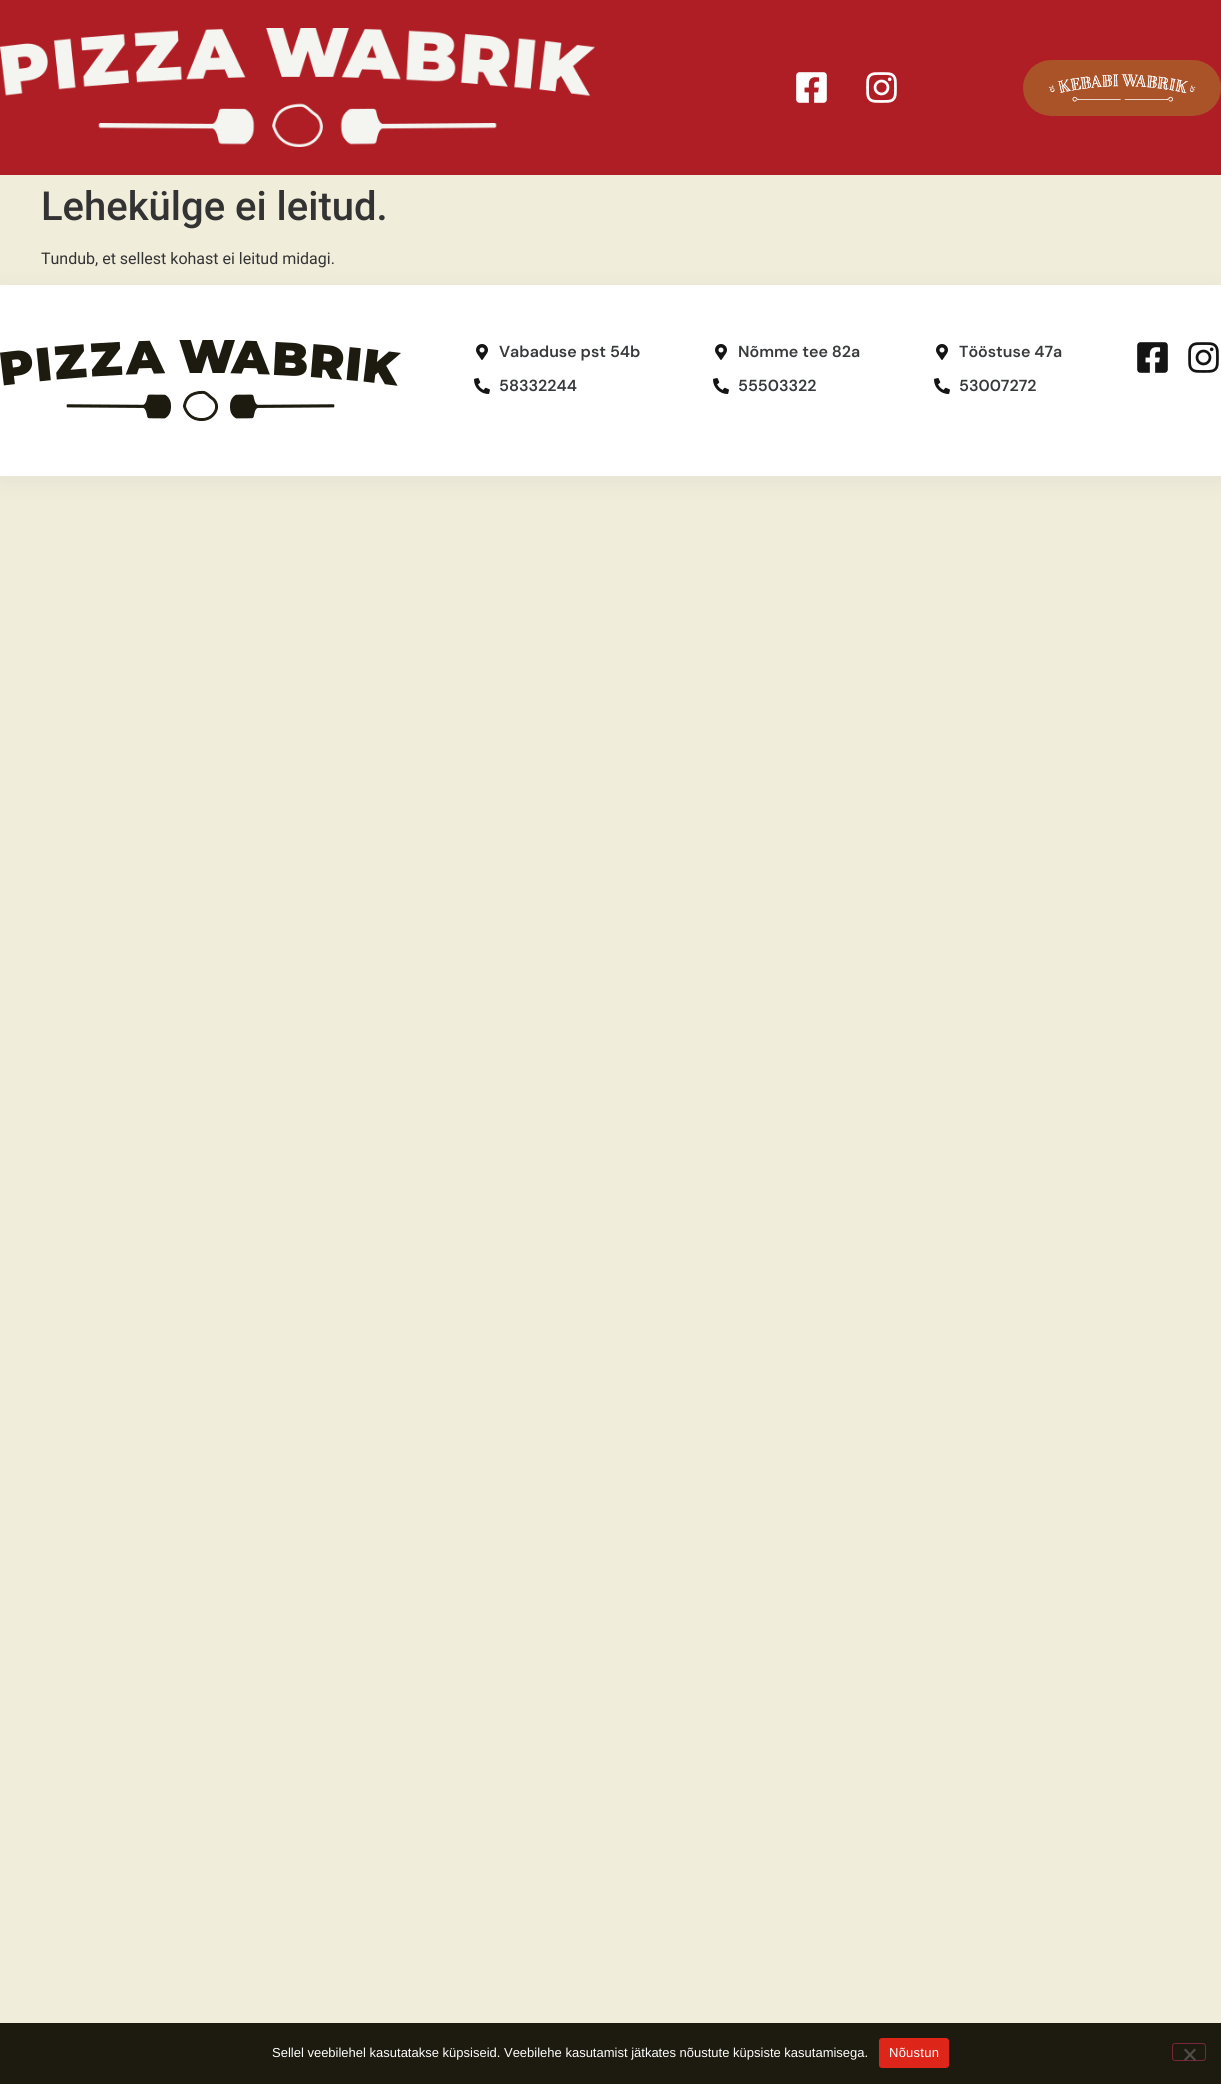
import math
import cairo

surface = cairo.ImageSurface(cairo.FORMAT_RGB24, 1221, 2084)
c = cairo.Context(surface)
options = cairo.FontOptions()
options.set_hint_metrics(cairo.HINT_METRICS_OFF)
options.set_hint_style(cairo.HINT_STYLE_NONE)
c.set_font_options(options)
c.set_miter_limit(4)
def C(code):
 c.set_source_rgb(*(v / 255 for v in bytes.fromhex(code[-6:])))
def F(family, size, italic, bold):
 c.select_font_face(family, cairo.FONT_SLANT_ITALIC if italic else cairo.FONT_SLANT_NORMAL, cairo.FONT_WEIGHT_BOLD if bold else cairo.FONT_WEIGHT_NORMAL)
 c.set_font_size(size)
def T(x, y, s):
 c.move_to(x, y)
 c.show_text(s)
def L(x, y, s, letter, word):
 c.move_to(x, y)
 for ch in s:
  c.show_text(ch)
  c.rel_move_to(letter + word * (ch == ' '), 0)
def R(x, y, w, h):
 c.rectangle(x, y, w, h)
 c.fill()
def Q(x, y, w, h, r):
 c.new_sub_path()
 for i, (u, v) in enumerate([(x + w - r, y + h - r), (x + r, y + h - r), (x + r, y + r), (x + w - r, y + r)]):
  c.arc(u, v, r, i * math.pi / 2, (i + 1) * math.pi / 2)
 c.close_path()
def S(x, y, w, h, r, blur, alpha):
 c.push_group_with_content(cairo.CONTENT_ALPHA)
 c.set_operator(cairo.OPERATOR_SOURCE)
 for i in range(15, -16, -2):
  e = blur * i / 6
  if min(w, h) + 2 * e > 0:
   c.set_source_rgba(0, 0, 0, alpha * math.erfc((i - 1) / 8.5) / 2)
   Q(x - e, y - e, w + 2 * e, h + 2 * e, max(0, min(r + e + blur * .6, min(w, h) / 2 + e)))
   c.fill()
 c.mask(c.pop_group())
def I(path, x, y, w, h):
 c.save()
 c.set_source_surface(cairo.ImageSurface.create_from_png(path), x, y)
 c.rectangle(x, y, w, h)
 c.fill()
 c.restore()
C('f0eddb')
c.paint()
C('b01e25')
R(0,0,1221,175)
I('1.png',0,28,595,119)
I('2.png',796,72,31,31)
I('3.png',866,72,31,31)
I('4.png',1023,60,198,56)
F('Roboto Medium',40,0,0)
C('333333')
T(41,220,'Lehekülge ei leitud.')
F('Roboto',16,0,0)
T(41,264,'Tundub, et sellest kohast ei leitud midagi.')
C('000000')
S(0,290,1221,191,0,12.5,.05)
C('ffffff')
R(0,285,1221,191)
I('5.png',0,340,401,81)
I('6.png',476,344,12,16)
F('DM Sans SemiBold',16,0,0)
C('37393b')
T(499,357,'Vabaduse pst 54b')
I('7.png',474,378,16,16)
T(499,391,'58332244')
I('6.png',715,344,12,16)
T(738,357,'Nõmme tee 82a')
I('7.png',713,378,16,16)
T(738,391,'55503322')
I('6.png',936,344,12,16)
T(959,357,'Tööstuse 47a')
I('7.png',934,378,16,16)
T(959,391,'53007272')
I('8.png',1137,342,31,31)
I('9.png',1188,342,31,31)
C('1d1a0f')
R(0,2023,1221,61)
F('Liberation Sans',13,0,0)
C('ffffff')
T(272,2057,'Sellel veebilehel kasutatakse küpsiseid. Veebilehe kasutamist jätkates nõustute küpsiste kasutamisega.')
C('dd2619')
Q(879,2038,70,30,3)
c.fill()
C('ffffff')
L(889,2057,'Nõustun',.25,0)
Q(1172.5,2043.5,33,17,2.5)
C('75273b')
c.set_line_width(1)
c.stroke()
C('4f4d48')
c.new_path()
c.move_to(1194.5,2048.5)
c.line_to(1196,2050)
c.line_to(1185.5,2061)
c.line_to(1184,2059.5)
c.close_path()
c.fill()
c.new_path()
c.move_to(1184,2050)
c.line_to(1185.5,2048.5)
c.line_to(1196,2059.5)
c.line_to(1194.5,2061)
c.close_path()
c.fill()
surface.write_to_png('o.png')
